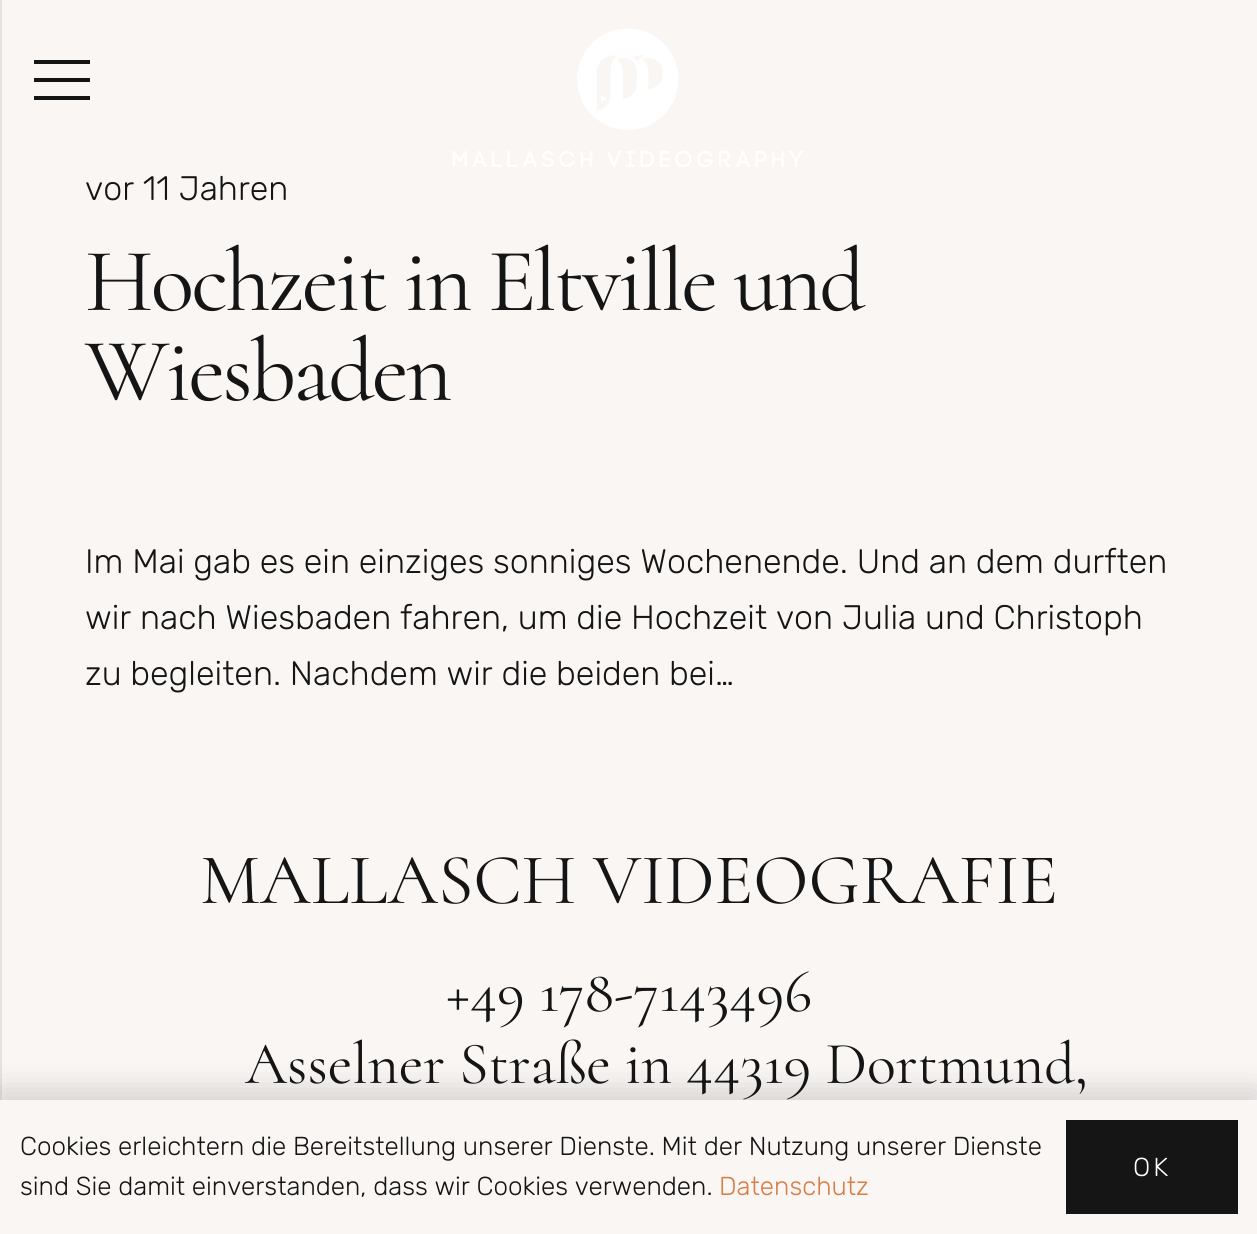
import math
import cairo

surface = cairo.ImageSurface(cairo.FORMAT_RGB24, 1257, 1234)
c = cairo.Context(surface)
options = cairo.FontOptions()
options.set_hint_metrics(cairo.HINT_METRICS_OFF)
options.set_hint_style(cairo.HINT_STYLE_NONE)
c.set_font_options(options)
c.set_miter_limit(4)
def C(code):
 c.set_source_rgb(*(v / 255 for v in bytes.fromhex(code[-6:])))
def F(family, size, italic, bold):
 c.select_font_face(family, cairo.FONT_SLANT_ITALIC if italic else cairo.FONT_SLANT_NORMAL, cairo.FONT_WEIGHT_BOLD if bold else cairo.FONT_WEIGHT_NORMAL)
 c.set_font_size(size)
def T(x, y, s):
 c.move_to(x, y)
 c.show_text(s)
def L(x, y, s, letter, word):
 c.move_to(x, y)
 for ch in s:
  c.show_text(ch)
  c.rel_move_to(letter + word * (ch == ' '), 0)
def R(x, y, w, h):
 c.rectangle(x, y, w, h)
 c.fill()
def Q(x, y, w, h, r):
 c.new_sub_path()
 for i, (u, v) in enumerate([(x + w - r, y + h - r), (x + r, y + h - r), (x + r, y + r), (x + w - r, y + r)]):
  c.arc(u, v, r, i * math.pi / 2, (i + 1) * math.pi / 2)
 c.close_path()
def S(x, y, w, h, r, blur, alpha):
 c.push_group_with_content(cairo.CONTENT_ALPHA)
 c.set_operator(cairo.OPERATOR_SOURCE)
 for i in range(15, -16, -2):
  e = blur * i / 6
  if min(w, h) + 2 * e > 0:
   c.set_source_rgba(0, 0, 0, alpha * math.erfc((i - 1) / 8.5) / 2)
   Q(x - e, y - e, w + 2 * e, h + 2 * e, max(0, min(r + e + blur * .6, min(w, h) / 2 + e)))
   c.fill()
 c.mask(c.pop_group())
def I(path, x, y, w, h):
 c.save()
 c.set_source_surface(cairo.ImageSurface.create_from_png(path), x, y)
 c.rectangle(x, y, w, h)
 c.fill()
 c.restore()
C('f9f6f4')
c.paint()
C('e5e2e0')
R(0,0,2,1100)
C('151515')
R(34,78,56,4)
R(34,60,56,4)
R(34,96,56,4)
I('1.png',452,28,351,139)
F('Rubik Light',34,0,0)
T(85,200,'vor 11 Jahren')
F('Cormorant Light',90.25,0,0)
L(85,310,'Hochzeit in Eltville und',-2.75,0)
L(85,400,'Wiesbaden',-2.75,0)
F('Rubik Light',34,0,0)
T(85,573,'Im Mai gab es ein einziges sonniges Wochenende. Und an dem durften')
T(85,629,'wir nach Wiesbaden fahren, um die Hochzeit von Julia und Christoph')
T(85,685,'zu begleiten. Nachdem wir die beiden bei…')
F('Cormorant Light',72,0,0)
T(200,903,'MALLASCH VIDEOGRAFIE')
F('Cormorant Light',60,0,0)
T(446,1011,'+49 178-7143496')
T(245,1083,'Asselner Straße in 44319 Dortmund,')
C('000000')
S(0,1090,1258,134,0,15,.15)
C('f9f6f4')
R(0,1100,1257,134)
F('Rubik Light',26,0,0)
C('151515')
T(20,1155,'Cookies erleichtern die Bereitstellung unserer Dienste. Mit der Nutzung unserer Dienste')
T(20,1195,'sind Sie damit einverstanden, dass wir Cookies verwenden.')
C('d87d44')
T(719,1195,'Datenschutz')
C('151515')
R(1066,1120,172,94)
C('ffffff')
L(1133,1176,'OK',3,0)
surface.write_to_png('o.png')
